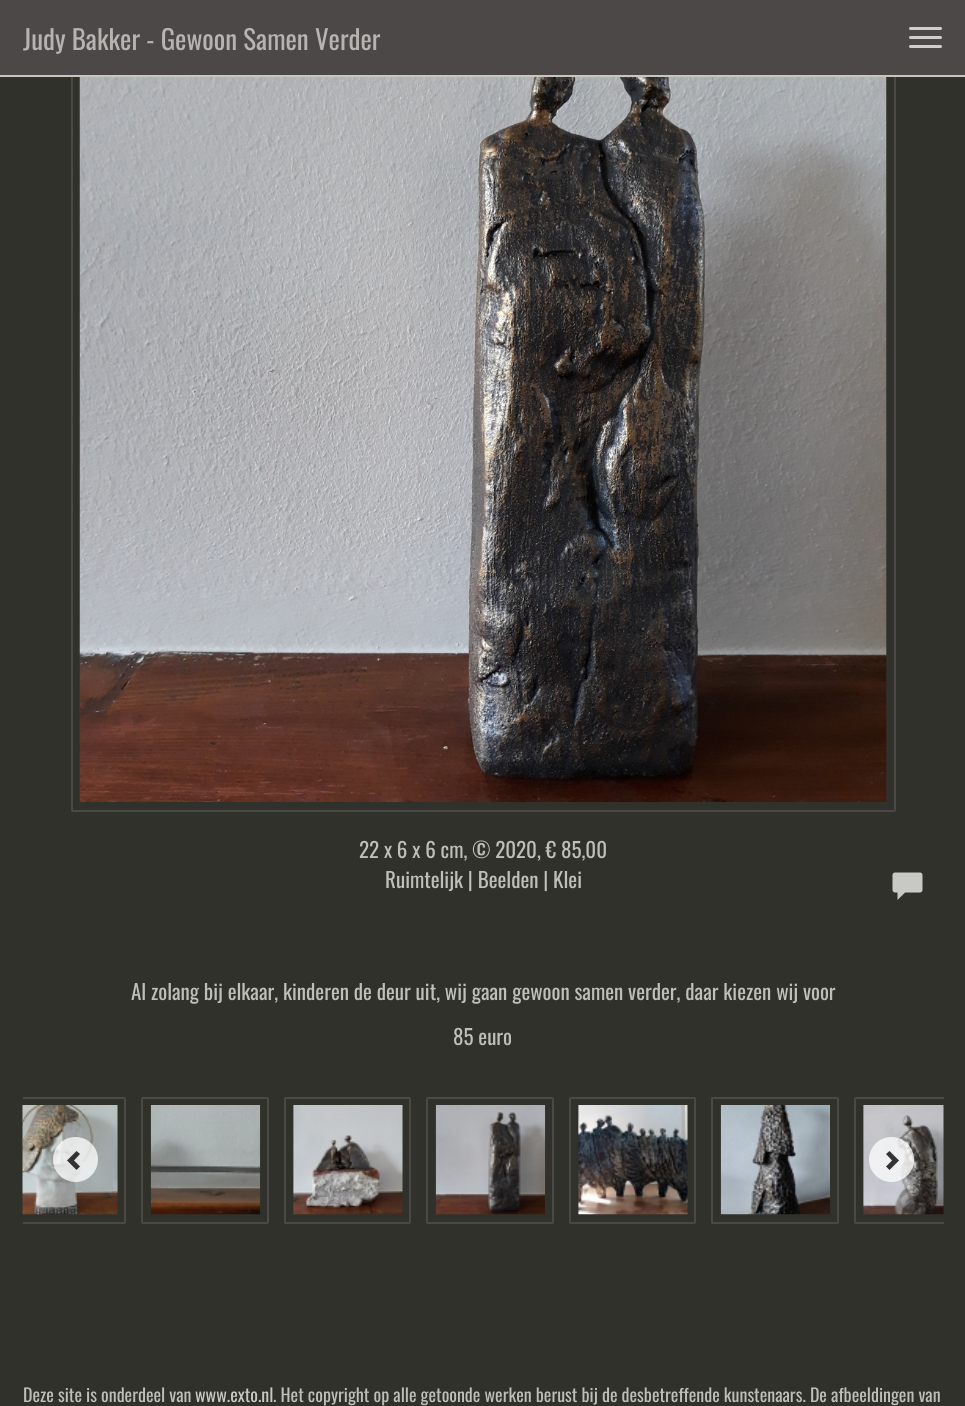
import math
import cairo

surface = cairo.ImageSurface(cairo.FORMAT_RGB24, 965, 1406)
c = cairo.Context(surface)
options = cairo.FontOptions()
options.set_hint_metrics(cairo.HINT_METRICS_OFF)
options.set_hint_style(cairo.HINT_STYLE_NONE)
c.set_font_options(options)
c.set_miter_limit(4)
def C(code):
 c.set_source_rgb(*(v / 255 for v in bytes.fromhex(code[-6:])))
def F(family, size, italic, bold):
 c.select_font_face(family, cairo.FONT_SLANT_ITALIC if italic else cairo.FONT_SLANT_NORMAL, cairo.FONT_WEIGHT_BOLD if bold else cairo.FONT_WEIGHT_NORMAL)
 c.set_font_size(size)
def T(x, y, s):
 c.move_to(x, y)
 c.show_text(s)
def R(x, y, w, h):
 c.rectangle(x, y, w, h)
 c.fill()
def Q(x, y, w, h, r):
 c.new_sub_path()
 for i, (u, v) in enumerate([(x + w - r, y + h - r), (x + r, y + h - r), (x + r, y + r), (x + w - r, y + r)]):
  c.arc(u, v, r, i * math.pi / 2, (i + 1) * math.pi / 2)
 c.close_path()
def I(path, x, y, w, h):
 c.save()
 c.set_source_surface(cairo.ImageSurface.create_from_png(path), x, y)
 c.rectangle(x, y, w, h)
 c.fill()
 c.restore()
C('31312b')
c.paint()
Q(72,-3,823,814,.5)
C('4c4848')
c.stroke()
R(0,0,965,75)
C('c9c6bb')
R(0,75,965,2)
F('Oswald',27,0,0)
C('b5b4af')
T(23,50,'Judy Bakker - Gewoon Samen Verder')
C('cfcfc9')
Q(909,27,33,3,1.5)
c.fill()
Q(909,36,33,3,1.5)
c.fill()
Q(909,45,33,3,1.5)
c.fill()
I('1.png',79,77,808,725)
F('Oswald',21,0,0)
C('bebfba')
T(359,858,'22 x 6 x 6 cm, © 2020, € 85,00')
T(385,888,'Ruimtelijk | Beelden | Klei')
I('2.png',892,872,31,28)
T(131,1000,'Al zolang bij elkaar, kinderen de deur uit, wij gaan gewoon samen verder, daar kiezen wij voor')
T(453,1045,'85 euro')
c.save()
c.rectangle(23,1089,921,143)
c.clip()
Q(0,1098,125,125,.5)
C('4c4848')
c.stroke()
c.restore()
I('3.png',22,1105,96,110)
Q(142,1098,126,125,.5)
C('4c4848')
c.stroke()
I('4.png',150,1105,111,110)
Q(285,1098,125,125,.5)
c.stroke()
I('5.png',293,1105,110,110)
Q(427,1098,126,125,.5)
c.stroke()
I('6.png',435,1105,111,110)
Q(570,1098,125,125,.5)
c.stroke()
I('7.png',578,1105,110,110)
Q(712,1098,126,125,.5)
c.stroke()
I('8.png',720,1105,111,110)
c.save()
c.rectangle(23,1089,921,143)
c.clip()
Q(855,1098,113,125,.5)
c.stroke()
c.restore()
I('9.png',863,1105,81,110)
c.set_source_rgba(1,1,1,0.75)
c.arc(75.5,1159.5,22.5,0,2 * math.pi)
c.fill()
C('333333')
c.new_path()
c.move_to(80,1154)
c.line_to(74,1160.5)
c.line_to(80,1166.5)
c.line_to(76.5,1170)
c.line_to(67,1160.5)
c.line_to(76.5,1151)
c.close_path()
c.fill()
c.set_source_rgba(1,1,1,0.75)
c.arc(891.5,1159.5,22.5,0,2 * math.pi)
c.fill()
C('333333')
c.new_path()
c.move_to(899,1160.5)
c.line_to(889.5,1170)
c.line_to(886,1166.5)
c.line_to(892,1160.5)
c.line_to(886,1154)
c.line_to(889.5,1151)
c.close_path()
c.fill()
F('Oswald',18,0,0)
C('bebfba')
T(23,1402,'Deze site is onderdeel van')
C('c8c9c5')
T(195,1402,'www.exto.nl')
C('bebfba')
T(273,1402,'. Het copyright op alle getoonde werken berust bij de desbetreffende kunstenaars. De afbeeldingen van')
surface.write_to_png('o.png')
